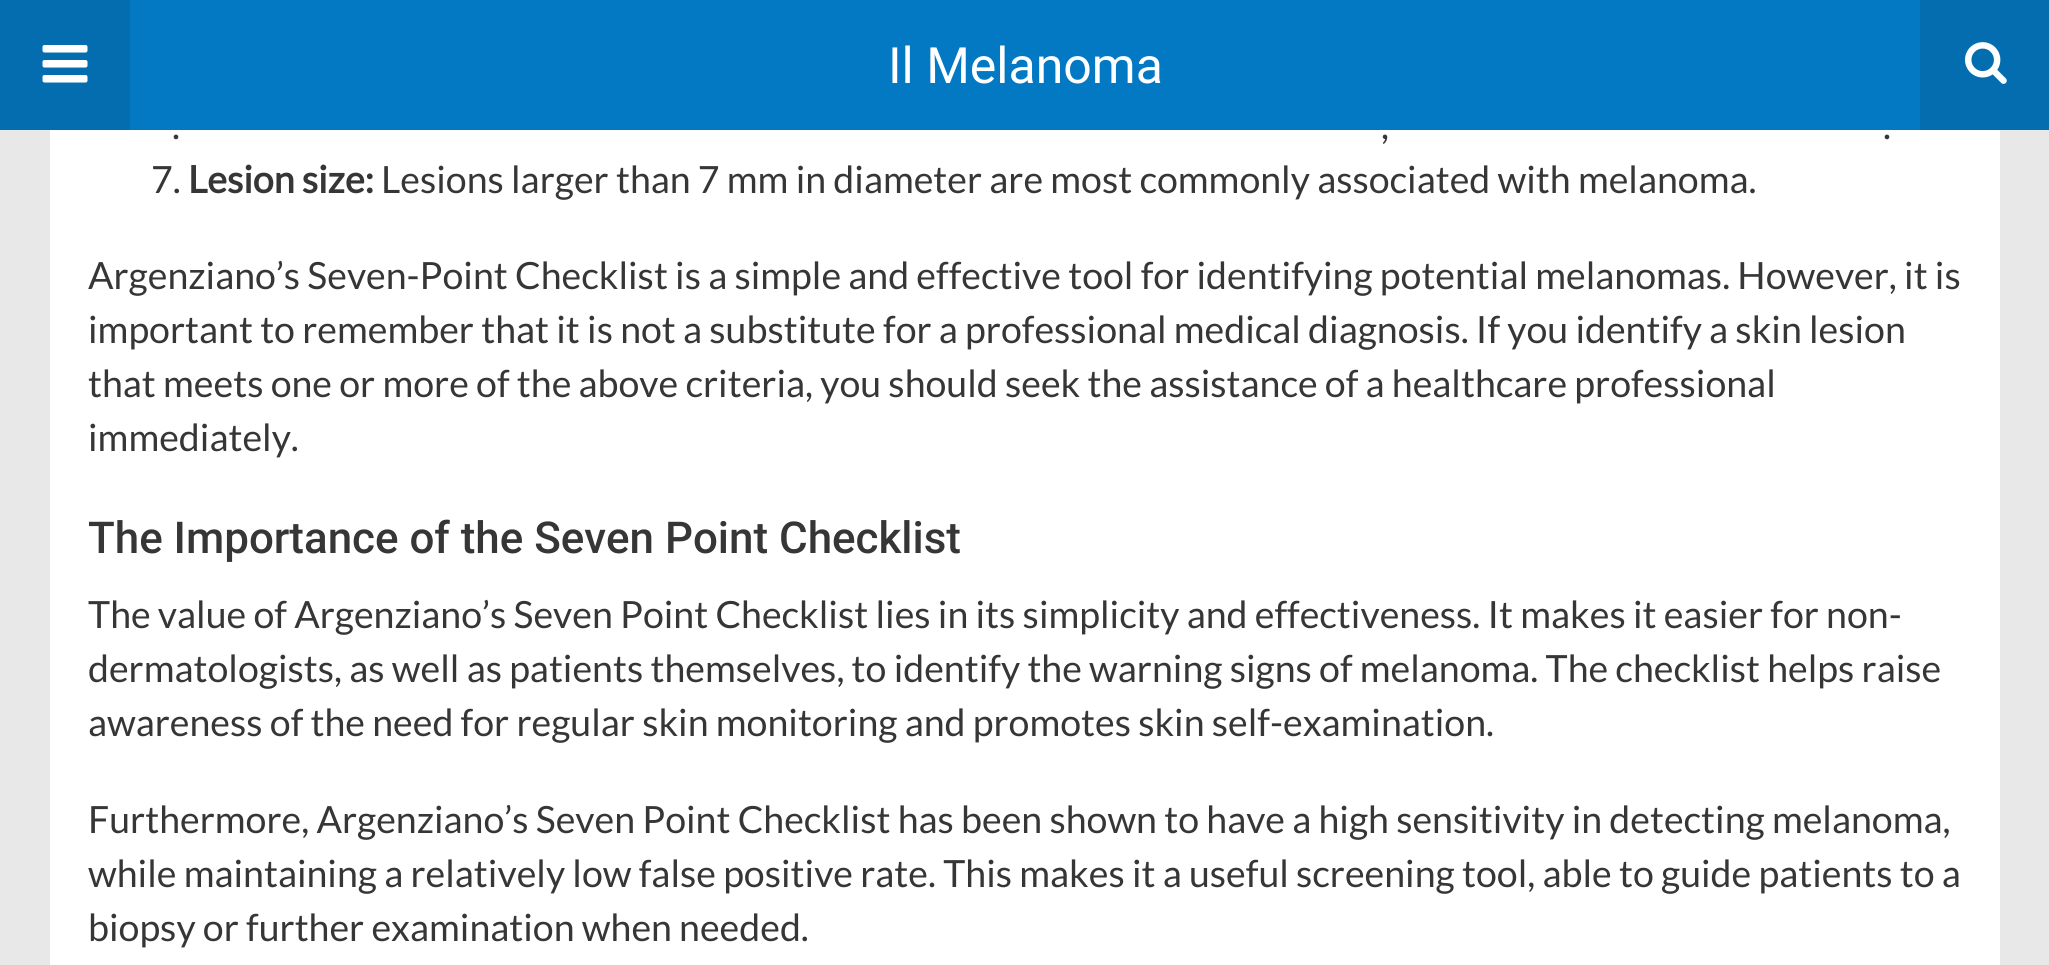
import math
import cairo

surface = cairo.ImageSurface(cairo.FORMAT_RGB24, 2049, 965)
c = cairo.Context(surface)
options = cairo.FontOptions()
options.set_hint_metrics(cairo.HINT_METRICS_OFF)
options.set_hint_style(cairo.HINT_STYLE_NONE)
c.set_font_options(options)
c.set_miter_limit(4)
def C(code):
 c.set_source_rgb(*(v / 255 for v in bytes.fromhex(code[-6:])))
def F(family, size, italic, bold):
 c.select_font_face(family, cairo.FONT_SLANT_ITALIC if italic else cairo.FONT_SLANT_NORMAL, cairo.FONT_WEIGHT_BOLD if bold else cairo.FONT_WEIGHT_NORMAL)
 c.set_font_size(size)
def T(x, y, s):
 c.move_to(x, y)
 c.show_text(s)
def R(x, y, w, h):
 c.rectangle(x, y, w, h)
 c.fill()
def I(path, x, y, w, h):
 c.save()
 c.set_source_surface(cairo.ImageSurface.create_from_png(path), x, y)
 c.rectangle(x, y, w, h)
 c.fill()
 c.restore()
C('e8e8e8')
c.paint()
C('ffffff')
R(50,130,1950,835)
C('0379c4')
R(130,0,1790,130)
C('036db0')
R(0,0,130,130)
I('1.png',42,45,46,38)
F('Roboto',50,0,0)
C('ffffff')
T(888,83,'Il Melanoma')
C('036db0')
R(1920,0,129,130)
I('2.png',1965,42,42,42)
F('Lato',37.5,0,0)
C('363636')
T(172,139,'.')
T(1381,139,',')
T(1883,139,'.')
T(151,193,'7.')
F('Lato',37.5,0,1)
T(188,193,'Lesion size:')
F('Lato',37.5,0,0)
T(381,193,'Lesions larger than 7 mm in diameter are most commonly associated with melanoma.')
T(88,289,'Argenziano’s Seven-Point Checklist is a simple and effective tool for identifying potential melanomas. However, it is')
T(88,343,'important to remember that it is not a substitute for a professional medical diagnosis. If you identify a skin lesion')
T(88,397,'that meets one or more of the above criteria, you should seek the assistance of a healthcare professional')
T(88,451,'immediately.')
F('Roboto Medium',43.9,0,0)
T(88,553,'The Importance of the Seven Point Checklist')
F('Lato',37.5,0,0)
T(88,628,'The value of Argenziano’s Seven Point Checklist lies in its simplicity and effectiveness. It makes it easier for non-')
T(88,682,'dermatologists, as well as patients themselves, to identify the warning signs of melanoma. The checklist helps raise')
T(88,736,'awareness of the need for regular skin monitoring and promotes skin self-examination.')
T(88,833,'Furthermore, Argenziano’s Seven Point Checklist has been shown to have a high sensitivity in detecting melanoma,')
T(88,887,'while maintaining a relatively low false positive rate. This makes it a useful screening tool, able to guide patients to a')
T(88,941,'biopsy or further examination when needed.')
surface.write_to_png('o.png')
